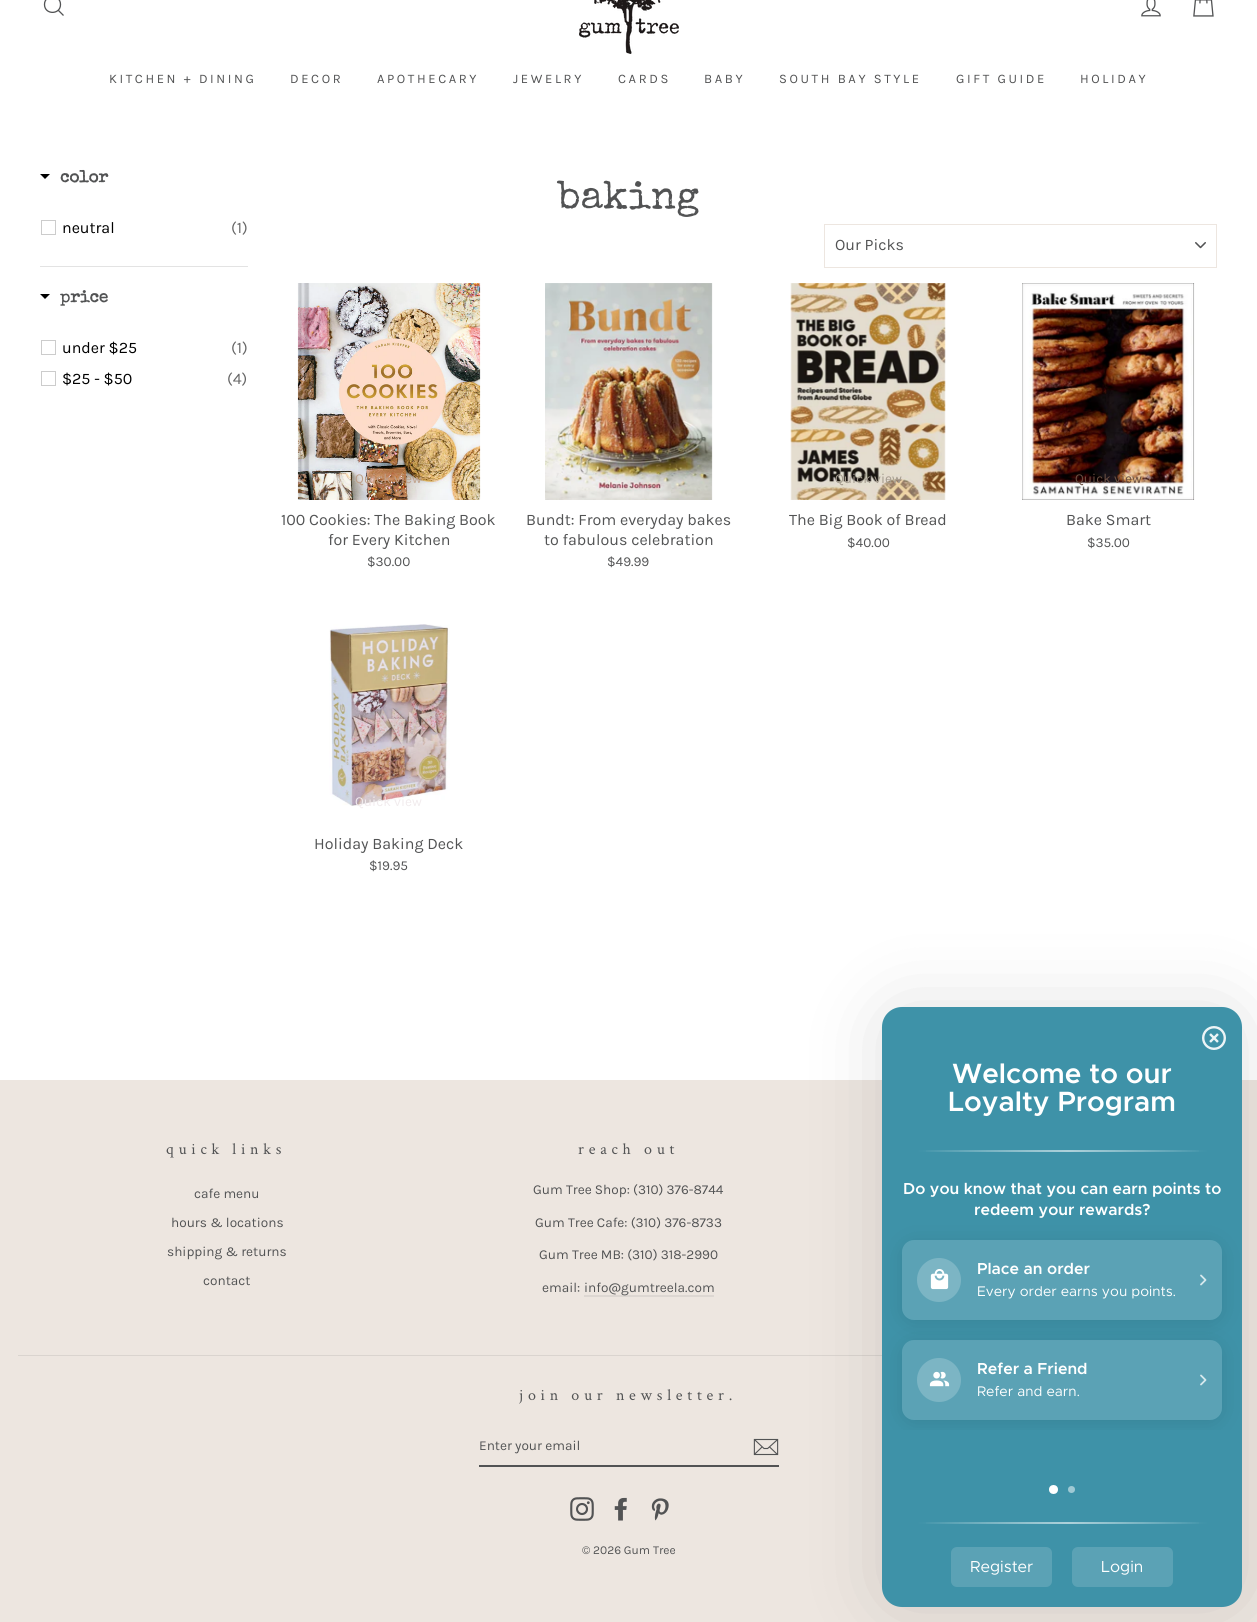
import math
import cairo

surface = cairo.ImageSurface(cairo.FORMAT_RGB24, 1257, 1622)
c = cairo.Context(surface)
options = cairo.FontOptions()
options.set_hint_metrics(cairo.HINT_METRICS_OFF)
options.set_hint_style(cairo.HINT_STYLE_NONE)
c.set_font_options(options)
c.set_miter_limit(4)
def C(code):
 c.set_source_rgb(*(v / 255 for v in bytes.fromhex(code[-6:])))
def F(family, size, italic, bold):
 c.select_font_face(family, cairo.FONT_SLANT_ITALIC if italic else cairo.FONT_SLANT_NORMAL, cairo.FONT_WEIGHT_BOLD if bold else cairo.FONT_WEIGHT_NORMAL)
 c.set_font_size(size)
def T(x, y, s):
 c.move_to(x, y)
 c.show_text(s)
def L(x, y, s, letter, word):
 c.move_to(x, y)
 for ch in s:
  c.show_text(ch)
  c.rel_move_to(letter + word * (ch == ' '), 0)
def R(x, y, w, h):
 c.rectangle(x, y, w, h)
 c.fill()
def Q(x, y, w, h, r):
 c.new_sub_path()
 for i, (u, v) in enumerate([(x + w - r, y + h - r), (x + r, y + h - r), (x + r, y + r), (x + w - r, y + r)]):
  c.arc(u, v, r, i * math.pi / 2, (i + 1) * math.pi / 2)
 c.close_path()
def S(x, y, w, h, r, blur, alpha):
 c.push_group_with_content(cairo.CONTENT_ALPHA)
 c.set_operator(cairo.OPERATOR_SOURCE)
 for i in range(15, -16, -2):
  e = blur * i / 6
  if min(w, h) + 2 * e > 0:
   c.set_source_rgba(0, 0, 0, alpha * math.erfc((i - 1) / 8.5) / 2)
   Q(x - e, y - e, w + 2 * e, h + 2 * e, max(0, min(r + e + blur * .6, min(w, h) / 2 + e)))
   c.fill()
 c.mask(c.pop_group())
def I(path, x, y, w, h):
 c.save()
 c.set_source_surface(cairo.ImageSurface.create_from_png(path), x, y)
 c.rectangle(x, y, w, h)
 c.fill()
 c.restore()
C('ffffff')
c.paint()
c.new_path()
c.move_to(60.5,4.5)
c.curve_to(60.5,15,44.5,15,44.5,4.5)
c.curve_to(44.5,-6,60.5,-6,60.5,4.5)
c.close_path()
c.move_to(63.5,15.5)
c.line_to(58.5,10.5)
C('525354')
c.set_line_width(1.3)
c.stroke()
I('1.png',579,0,100,54)
I('2.png',1141,0,20,17)
I('3.png',1193,0,21,17)
F('Karla',13,0,0)
L(109,83,'KITCHEN + DINING',2.6,0)
L(290,83,'DECOR',2.6,0)
L(377,83,'APOTHECARY',2.6,0)
L(513,83,'JEWELRY',2.6,0)
L(618,83,'CARDS',2.6,0)
L(704,83,'BABY',2.6,0)
L(779,83,'SOUTH BAY STYLE',2.6,0)
L(956,83,'GIFT GUIDE',2.6,0)
L(1080,83,'HOLIDAY',2.6,0)
C('000000')
c.new_path()
c.move_to(40,174)
c.line_to(50,174)
c.line_to(45,179)
c.close_path()
c.fill()
F('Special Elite',17,0,1)
C('525354')
T(60,182,'color')
c.rectangle(41.5,220.5,14,14)
C('cccccc')
c.set_line_width(1)
c.stroke()
F('Karla',16,0,0)
C('000000')
T(62,233,'neutral')
C('666666')
T(231,233,'(1)')
C('e3e3e3')
R(40,266,208,1)
C('000000')
c.new_path()
c.move_to(40,294)
c.line_to(50,294)
c.line_to(45,299)
c.close_path()
c.fill()
F('Special Elite',17,0,1)
C('525354')
T(60,302,'price')
c.rectangle(41.5,340.5,14,14)
C('cccccc')
c.stroke()
F('Karla',16,0,0)
C('000000')
T(62,353,'under $25')
C('666666')
T(231,353,'(1)')
c.rectangle(41.5,371.5,14,14)
C('cccccc')
c.stroke()
C('000000')
T(62,384,'$25 - $50')
C('666666')
T(227,384,'(4)')
I('4.png',1195,242,11,7)
c.rectangle(824.5,224.5,392,43)
C('ede6e0')
c.stroke()
C('525354')
T(835,250,'Our Picks')
I('5.png',297,283,184,217)
F('Karla',13.6,0,0)
C('bea08a')
T(355,483,'Quick view')
F('Karla',16,0,0)
C('525354')
T(281,525,'100 Cookies: The Baking Book')
T(328,545,'for Every Kitchen')
F('Karla',13.6,0,0)
T(367,566,'$30.00')
I('6.png',545,283,168,217)
F('Karla',16,0,0)
T(526,525,'Bundt: From everyday bakes')
T(544,545,'to fabulous celebration')
F('Karla',13.6,0,0)
T(607,566,'$49.99')
I('7.png',790,283,156,217)
C('a39b8e')
T(835,483,'Quick view')
F('Karla',16,0,0)
C('525354')
T(789,525,'The Big Book of Bread')
F('Karla',13.6,0,0)
T(847,547,'$40.00')
I('8.png',1022,283,173,217)
C('694e41')
T(1075,483,'Quick view')
F('Karla',16,0,0)
C('525354')
T(1066,525,'Bake Smart')
F('Karla',13.6,0,0)
T(1087,547,'$35.00')
I('9.png',329,624,121,182)
C('f1ebed')
T(355,806,'Quick view')
F('Karla',16,0,0)
C('525354')
T(314,849,'Holiday Baking Deck')
F('Karla',13.6,0,0)
T(369,870,'$19.95')
F('Special Elite',40,0,0)
T(558,208,'baking')
C('ede6e0')
R(0,1080,1257,542)
F('Crimson Text',16,0,0)
C('525354')
L(166,1154,'quick links',4.75,0)
F('Karla',13.6,0,0)
T(194,1198,'cafe menu')
T(171,1227,'hours & locations')
T(167,1256,'shipping & returns')
T(203,1285,'contact')
F('Crimson Text',16,0,0)
L(578,1154,'reach out',4.75,0)
F('Karla',13.6,0,0)
T(533,1194,'Gum Tree Shop: (310) 376-8744')
T(535,1227,'Gum Tree Cafe: (310) 376-8733')
T(539,1259,'Gum Tree MB: (310) 318-2990')
T(542,1292,'email:')
C('ddd7d2')
R(584,1295,130,2)
C('525354')
T(584,1292,'info@gumtreela.com')
C('dad4cf')
R(18,1355,864,1)
F('Crimson Text',16,0,0)
C('525354')
L(519,1400,'join our newsletter.',4.75,0)
R(479,1465,300,2)
F('Karla',13.6,0,0)
T(479,1450,'Enter your email')
I('10.png',753,1438,26,18)
I('11.png',570,1497,24,24)
I('12.png',614,1497,13,24)
I('13.png',651,1498,18,23)
F('Karla',12,0,0)
T(582,1554,'© 2026 Gum Tree')
C('000000')
S(882,1007,360,600,20,40,.12)
C('3e92a8')
Q(882,1007,360,600,20)
c.fill()
I('14.png',1202,1026,24,24)
F('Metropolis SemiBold',28,0,0)
C('ffffff')
T(952,1083,'Welcome to our')
T(948,1111,'Loyalty Program')
gradient = cairo.LinearGradient(917,1151,1208,1151)
gradient.add_color_stop_rgba(0,0.243,0.573,0.659,1)
gradient.add_color_stop_rgba(.52,0.506,0.722,0.776,1)
gradient.add_color_stop_rgba(1,0.243,0.573,0.659,1)
c.set_source(gradient)
R(917,1150,291,2)
gradient = cairo.LinearGradient(917,1151,1208,1151)
gradient.add_color_stop_rgba(0,1,1,1,0)
gradient.add_color_stop_rgba(.52,1,1,1,.35)
gradient.add_color_stop_rgba(1,1,1,1,0)
c.set_source(gradient)
R(926,1150,273,2)
F('Metropolis SemiBold',16,0,0)
C('ffffff')
T(903,1194,'Do you know that you can earn points to')
T(974,1215,'redeem your rewards?')
c.save()
c.set_fill_rule(cairo.FILL_RULE_EVEN_ODD)
c.new_path()
c.move_to(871,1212)
c.line_to(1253,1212)
c.line_to(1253,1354)
c.line_to(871,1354)
c.close_path()
c.move_to(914,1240)
c.line_to(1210,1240)
c.curve_to(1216.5,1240,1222,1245.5,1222,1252)
c.line_to(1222,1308)
c.curve_to(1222,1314.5,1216.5,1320,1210,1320)
c.line_to(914,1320)
c.curve_to(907.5,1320,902,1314.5,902,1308)
c.line_to(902,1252)
c.curve_to(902,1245.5,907.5,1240,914,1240)
c.close_path()
c.clip()
C('000000')
S(902,1243,320,80,12,10,.1)
c.restore()
c.set_source_rgba(1,1,1,0.15)
Q(902,1240,320,80,12)
c.fill()
C('7cb5c4')
c.arc(939,1280,22,0,2 * math.pi)
c.fill()
I('15.png',930,1269,19,21)
C('ffffff')
T(977,1274,'Place an order')
F('Metropolis',14,0,0)
T(977,1296,'Every order earns you points.')
c.new_path()
c.move_to(1201,1275.5)
c.line_to(1205.5,1280)
c.line_to(1201,1284.5)
C('d6e8ed')
c.set_line_width(1.8)
c.set_line_cap(cairo.LINE_CAP_ROUND)
c.set_line_join(cairo.LINE_JOIN_ROUND)
c.stroke()
c.save()
c.rectangle(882,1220,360,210)
c.clip()
c.set_fill_rule(cairo.FILL_RULE_EVEN_ODD)
c.new_path()
c.move_to(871,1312)
c.line_to(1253,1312)
c.line_to(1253,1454)
c.line_to(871,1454)
c.close_path()
c.move_to(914,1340)
c.line_to(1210,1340)
c.curve_to(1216.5,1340,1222,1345.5,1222,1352)
c.line_to(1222,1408)
c.curve_to(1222,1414.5,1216.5,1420,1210,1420)
c.line_to(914,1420)
c.curve_to(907.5,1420,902,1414.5,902,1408)
c.line_to(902,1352)
c.curve_to(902,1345.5,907.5,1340,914,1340)
c.close_path()
c.clip()
C('000000')
S(902,1343,320,80,12,10,.1)
c.restore()
c.set_source_rgba(1,1,1,0.15)
Q(902,1340,320,80,12)
c.fill()
C('7cb5c4')
c.arc(939,1380,22,0,2 * math.pi)
c.fill()
I('16.png',929,1371,21,16)
F('Metropolis SemiBold',16,0,0)
C('ffffff')
T(977,1374,'Refer a Friend')
F('Metropolis',14,0,0)
T(977,1396,'Refer and earn.')
c.new_path()
c.move_to(1201,1375.5)
c.line_to(1205.5,1380)
c.line_to(1201,1384.5)
C('d6e8ed')
c.stroke()
C('ffffff')
c.arc(1053.5,1489.5,4.5,0,2 * math.pi)
c.fill()
C('9fc9d4')
c.arc(1071.5,1489.5,3.5,0,2 * math.pi)
c.fill()
gradient = cairo.LinearGradient(917,1523,1208,1523)
gradient.add_color_stop_rgba(0,0.243,0.573,0.659,1)
gradient.add_color_stop_rgba(.52,0.506,0.722,0.776,1)
gradient.add_color_stop_rgba(1,0.243,0.573,0.659,1)
c.set_source(gradient)
R(917,1522,291,2)
gradient = cairo.LinearGradient(917,1523,1208,1523)
gradient.add_color_stop_rgba(0,1,1,1,0)
gradient.add_color_stop_rgba(.52,1,1,1,.35)
gradient.add_color_stop_rgba(1,1,1,1,0)
c.set_source(gradient)
R(926,1522,273,2)
C('5ba2b5')
Q(951,1547,101,40,6)
c.fill()
F('Metropolis',16,0,0)
C('ffffff')
T(970,1572,'Register')
C('5ba2b5')
Q(1072,1547,101,40,6)
c.fill()
C('ffffff')
T(1101,1572,'Login')
surface.write_to_png('o.png')
